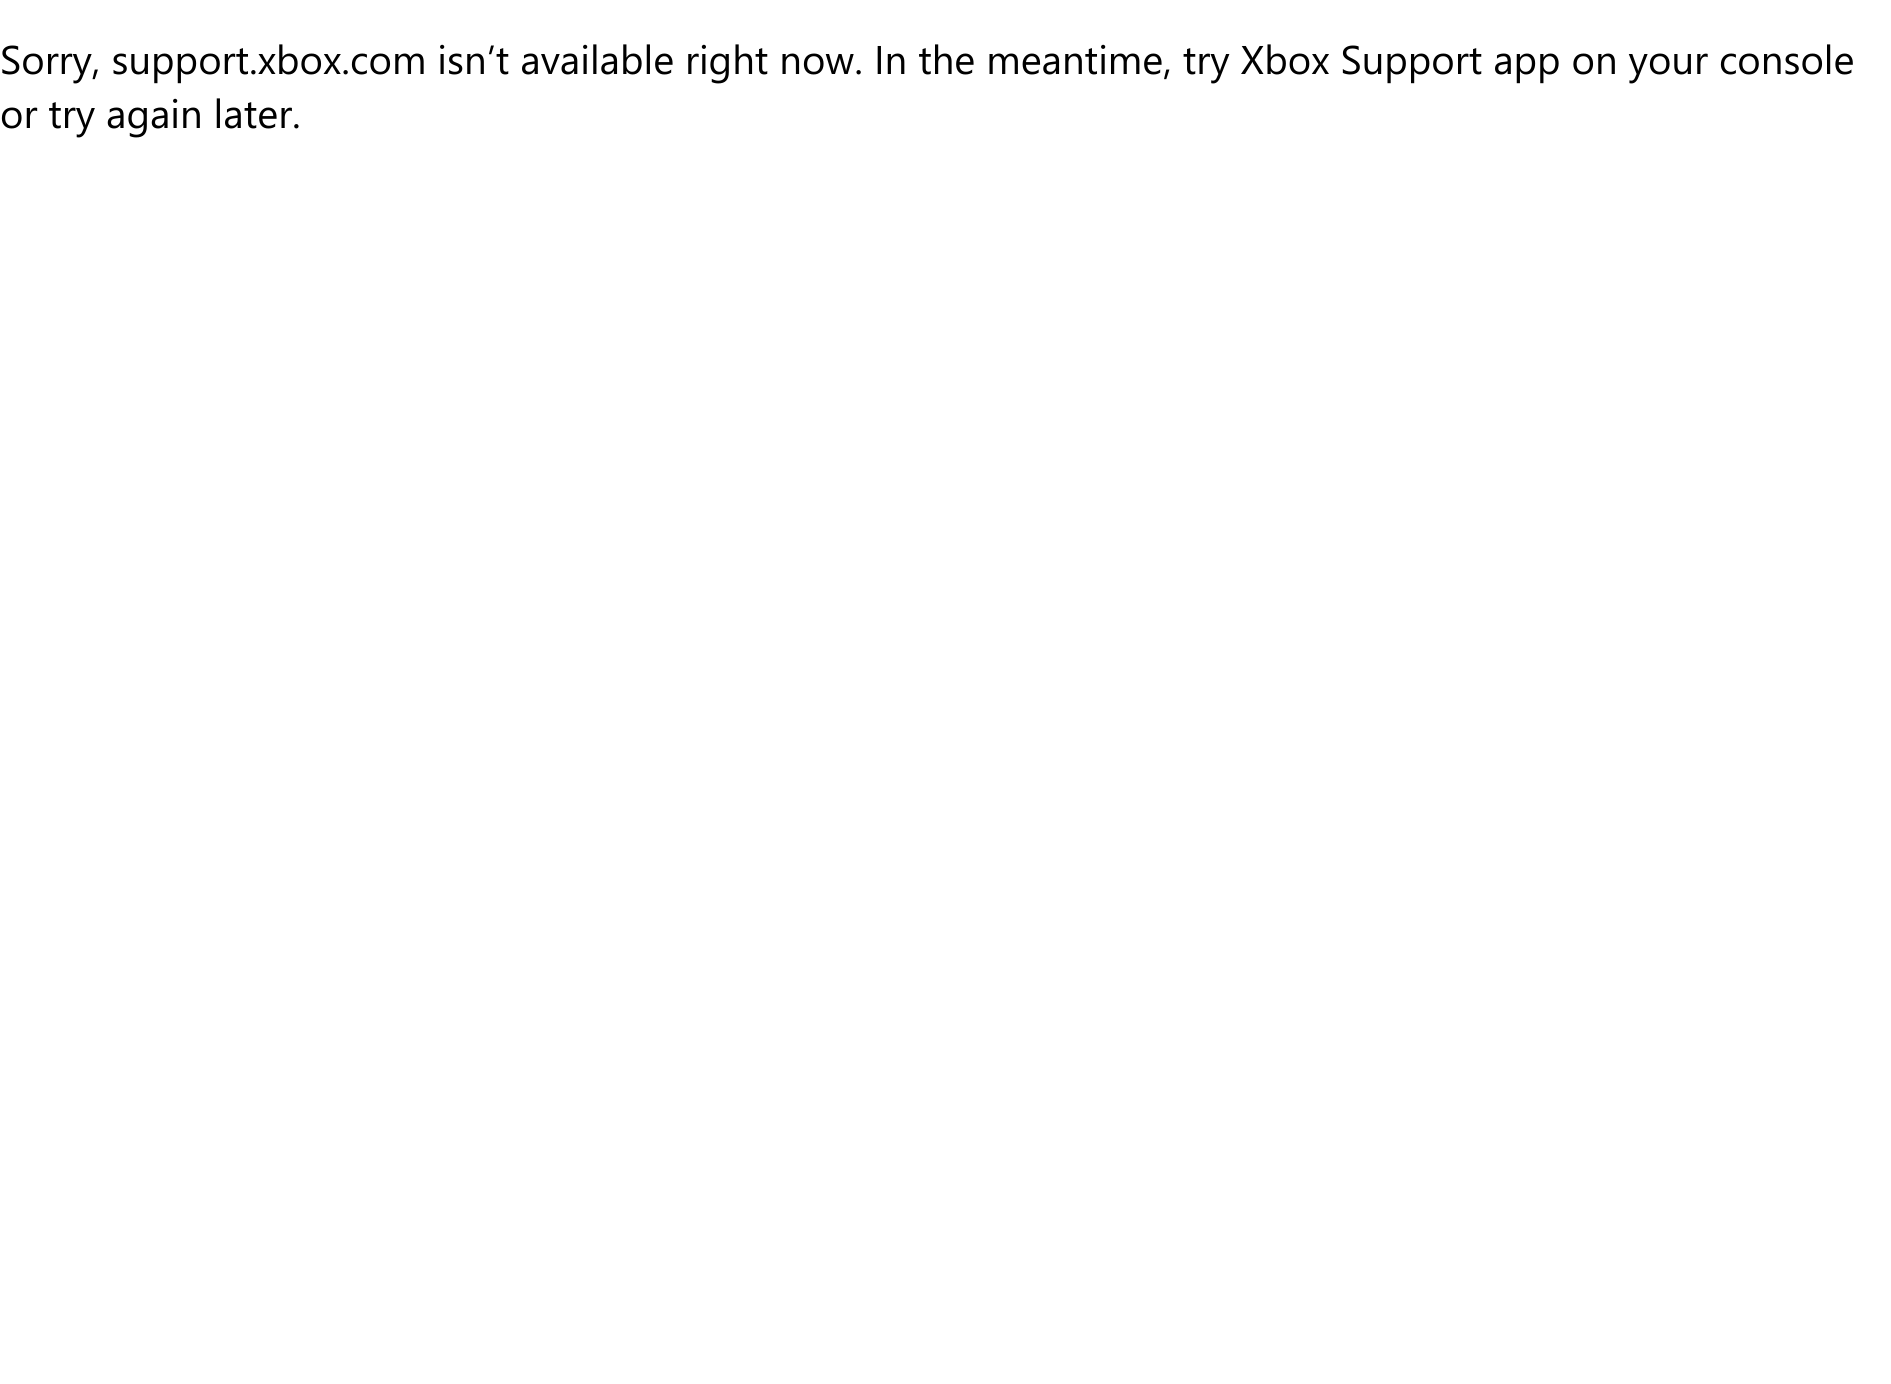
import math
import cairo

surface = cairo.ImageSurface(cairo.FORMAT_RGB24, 1891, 1384)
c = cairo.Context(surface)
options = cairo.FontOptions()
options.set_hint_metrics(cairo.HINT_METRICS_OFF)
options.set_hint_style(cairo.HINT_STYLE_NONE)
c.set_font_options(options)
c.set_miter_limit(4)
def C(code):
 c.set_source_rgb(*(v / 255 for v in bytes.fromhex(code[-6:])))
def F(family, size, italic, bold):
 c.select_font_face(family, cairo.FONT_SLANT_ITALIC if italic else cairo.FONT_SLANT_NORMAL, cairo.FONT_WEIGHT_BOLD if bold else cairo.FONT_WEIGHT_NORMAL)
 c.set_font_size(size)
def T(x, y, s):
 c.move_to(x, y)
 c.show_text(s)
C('ffffff')
c.paint()
F('Segoe UI',40,0,0)
C('000000')
T(0,74,'Sorry, support.xbox.com isn’t available right now. In the meantime, try Xbox Support app on your console')
T(0,128,'or try again later.')
surface.write_to_png('o.png')
